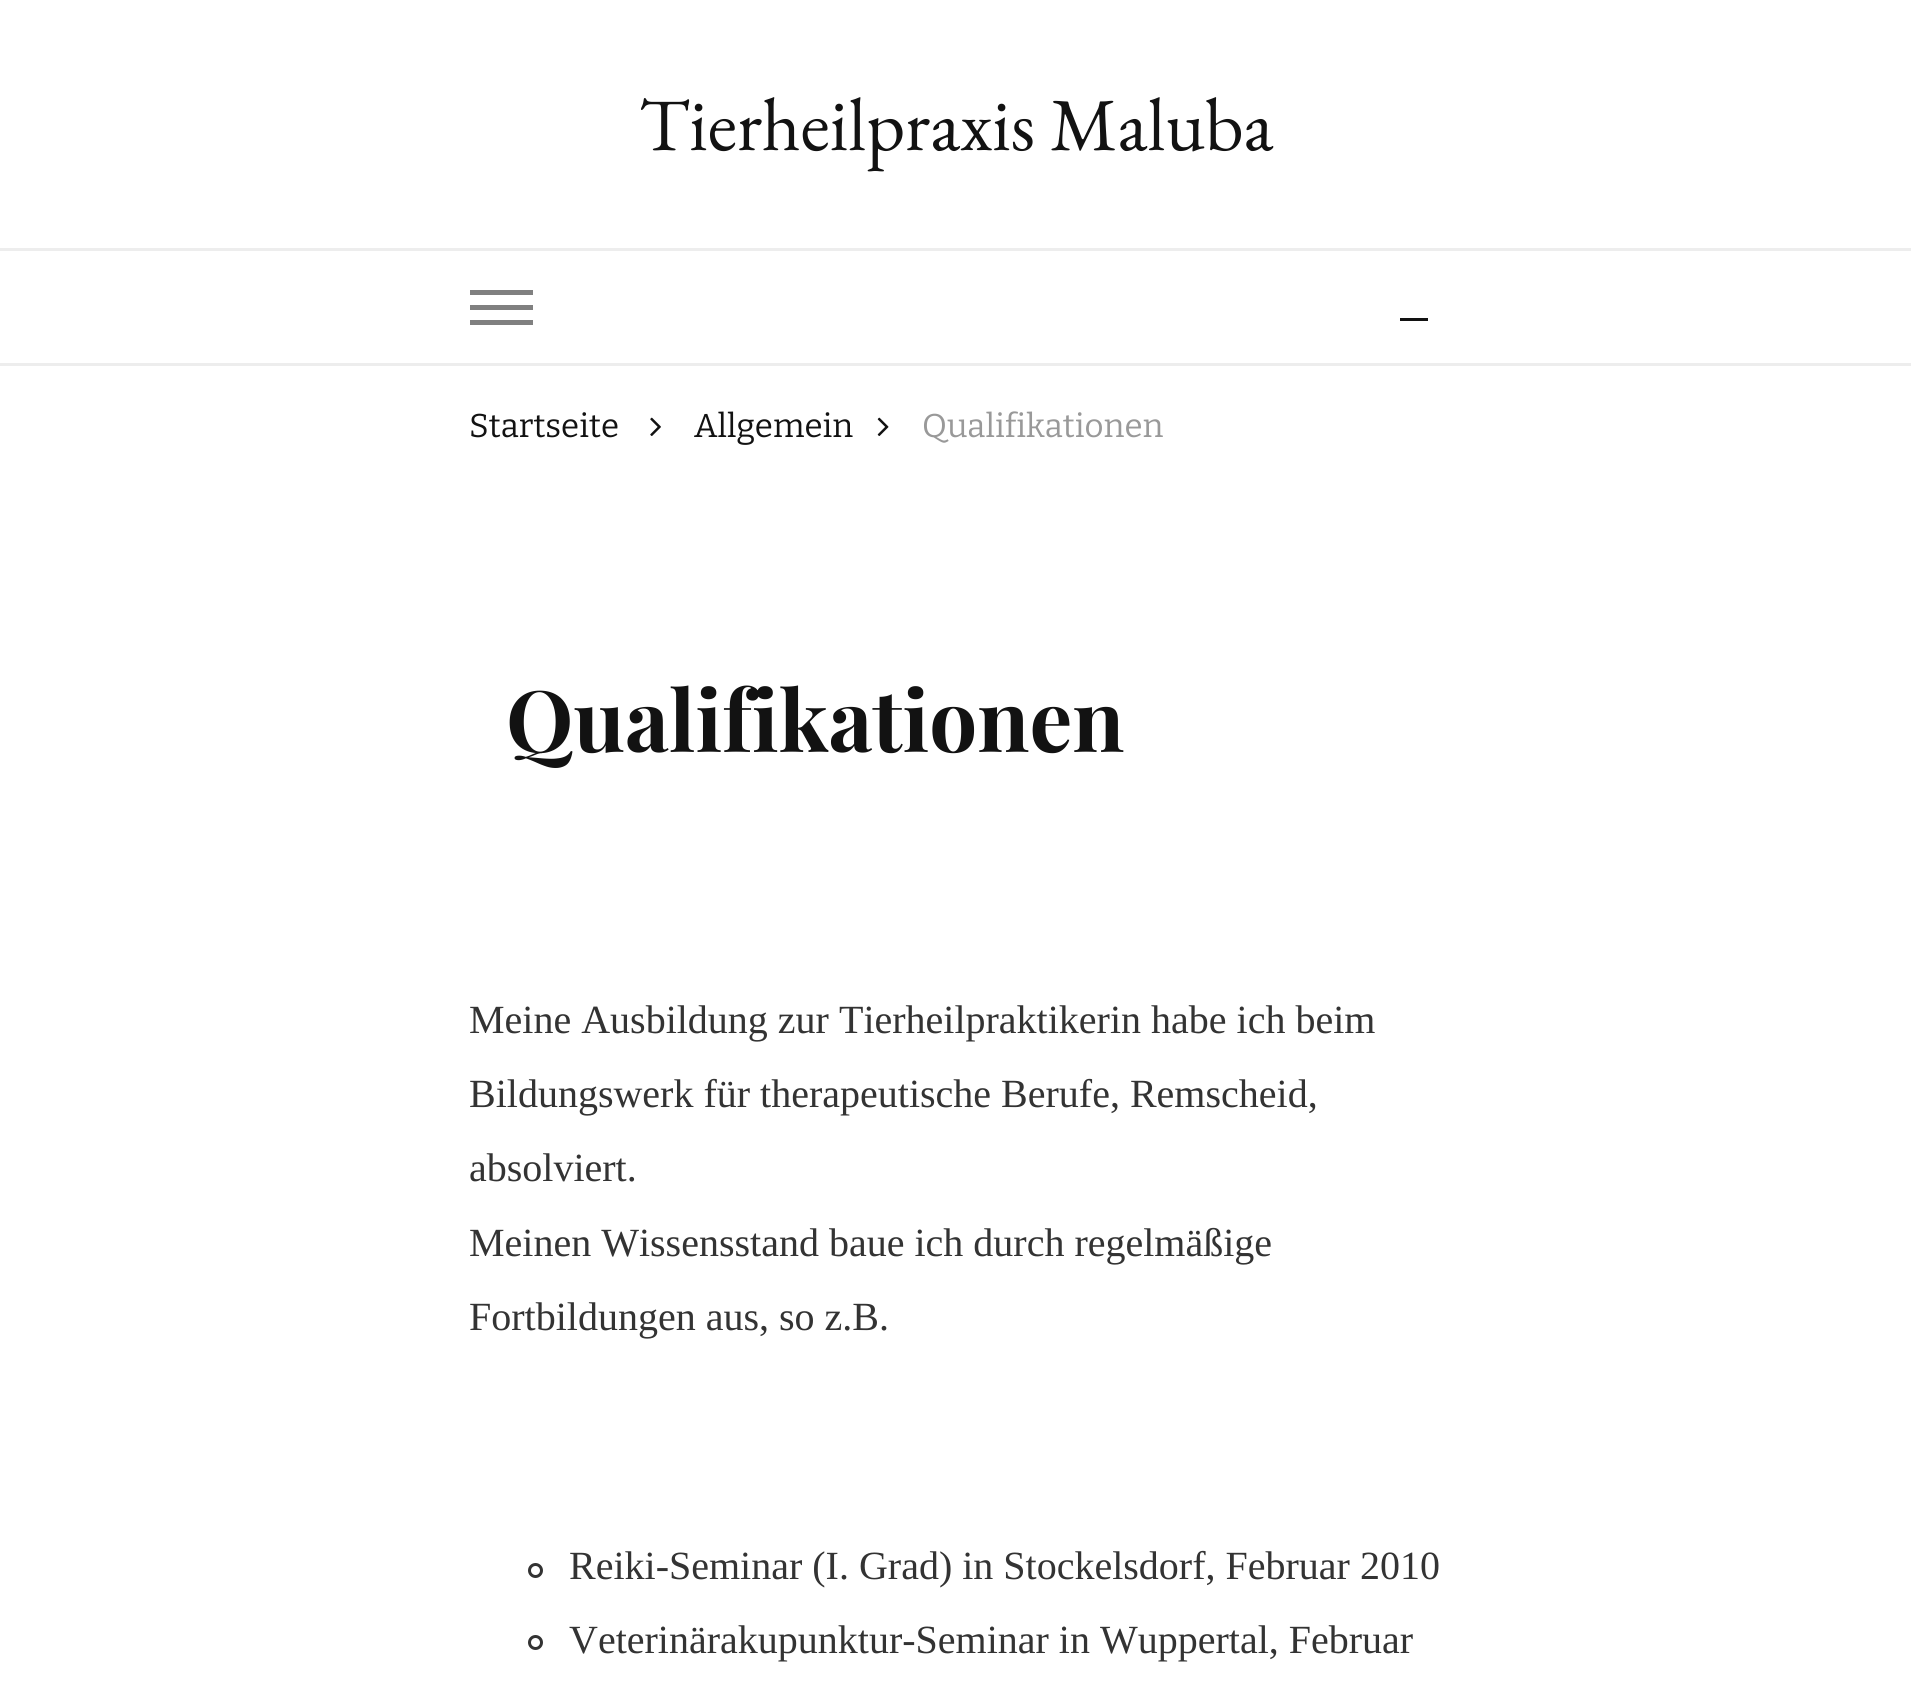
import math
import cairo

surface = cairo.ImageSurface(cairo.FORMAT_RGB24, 1911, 1700)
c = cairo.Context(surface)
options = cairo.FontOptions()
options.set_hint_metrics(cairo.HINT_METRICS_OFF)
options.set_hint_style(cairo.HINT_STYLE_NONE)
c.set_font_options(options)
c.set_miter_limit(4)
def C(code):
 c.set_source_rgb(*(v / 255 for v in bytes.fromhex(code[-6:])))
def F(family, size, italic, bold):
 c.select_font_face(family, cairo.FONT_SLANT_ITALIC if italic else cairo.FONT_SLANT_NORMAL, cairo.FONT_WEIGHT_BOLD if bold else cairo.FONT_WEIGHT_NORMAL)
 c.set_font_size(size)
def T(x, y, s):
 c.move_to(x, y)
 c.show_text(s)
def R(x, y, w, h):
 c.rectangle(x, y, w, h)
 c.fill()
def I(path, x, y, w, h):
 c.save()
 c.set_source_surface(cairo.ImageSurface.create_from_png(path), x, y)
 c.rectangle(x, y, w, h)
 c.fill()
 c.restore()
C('ffffff')
c.paint()
F('EB Garamond',75,0,0)
C('121212')
T(639,150,'Tierheilpraxis Maluba')
C('ededed')
R(0,248,1911,3)
R(0,363,1911,3)
C('808080')
R(470,290,63,5)
R(470,305,63,5)
R(470,320,63,5)
C('121212')
R(1400,318,28,3)
F('Bitter',33,0,0)
T(469,437,'Startseite')
I('1.png',650,417,11,19)
T(694,437,'Allgemein')
I('2.png',877,417,12,19)
C('999999')
T(922,437,'Qualifikationen')
F('Playfair Display',85,0,1)
C('121212')
T(506,752,'Qualifikationen')
F('Liberation Serif',40,0,0)
C('333333')
T(469,1033,'Meine Ausbildung zur Tierheilpraktikerin habe ich beim')
T(469,1107,'Bildungswerk für therapeutische Berufe, Remscheid,')
T(469,1181,'absolviert.')
T(469,1256,'Meinen Wissensstand baue ich durch regelmäßige')
T(469,1330,'Fortbildungen aus, so z.B.')
c.new_path()
c.arc(535.5,1570.5,6,0,2 * math.pi)
c.set_line_width(3)
c.stroke()
T(569,1579,'Reiki-Seminar (I. Grad) in Stockelsdorf, Februar 2010')
c.new_path()
c.arc(535.5,1642.5,6,0,2 * math.pi)
c.stroke()
T(569,1653,'Veterinärakupunktur-Seminar in Wuppertal, Februar')
surface.write_to_png('o.png')
